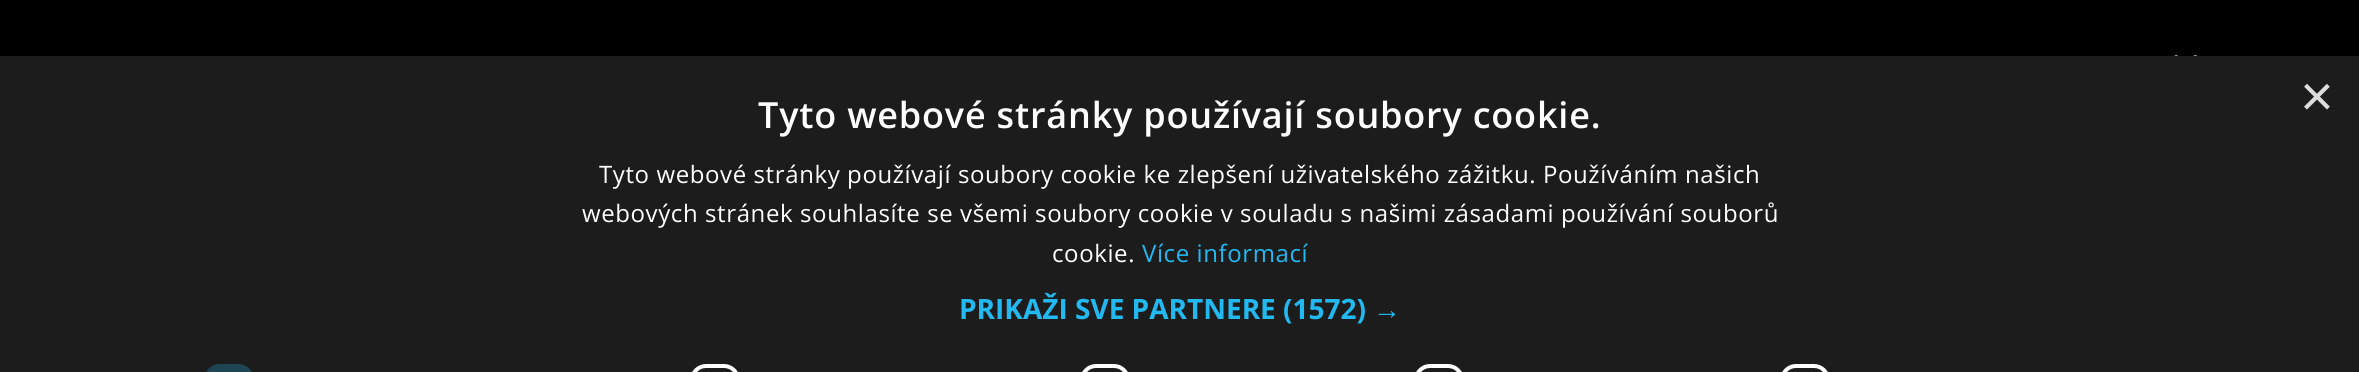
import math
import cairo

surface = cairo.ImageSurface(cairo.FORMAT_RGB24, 2359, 372)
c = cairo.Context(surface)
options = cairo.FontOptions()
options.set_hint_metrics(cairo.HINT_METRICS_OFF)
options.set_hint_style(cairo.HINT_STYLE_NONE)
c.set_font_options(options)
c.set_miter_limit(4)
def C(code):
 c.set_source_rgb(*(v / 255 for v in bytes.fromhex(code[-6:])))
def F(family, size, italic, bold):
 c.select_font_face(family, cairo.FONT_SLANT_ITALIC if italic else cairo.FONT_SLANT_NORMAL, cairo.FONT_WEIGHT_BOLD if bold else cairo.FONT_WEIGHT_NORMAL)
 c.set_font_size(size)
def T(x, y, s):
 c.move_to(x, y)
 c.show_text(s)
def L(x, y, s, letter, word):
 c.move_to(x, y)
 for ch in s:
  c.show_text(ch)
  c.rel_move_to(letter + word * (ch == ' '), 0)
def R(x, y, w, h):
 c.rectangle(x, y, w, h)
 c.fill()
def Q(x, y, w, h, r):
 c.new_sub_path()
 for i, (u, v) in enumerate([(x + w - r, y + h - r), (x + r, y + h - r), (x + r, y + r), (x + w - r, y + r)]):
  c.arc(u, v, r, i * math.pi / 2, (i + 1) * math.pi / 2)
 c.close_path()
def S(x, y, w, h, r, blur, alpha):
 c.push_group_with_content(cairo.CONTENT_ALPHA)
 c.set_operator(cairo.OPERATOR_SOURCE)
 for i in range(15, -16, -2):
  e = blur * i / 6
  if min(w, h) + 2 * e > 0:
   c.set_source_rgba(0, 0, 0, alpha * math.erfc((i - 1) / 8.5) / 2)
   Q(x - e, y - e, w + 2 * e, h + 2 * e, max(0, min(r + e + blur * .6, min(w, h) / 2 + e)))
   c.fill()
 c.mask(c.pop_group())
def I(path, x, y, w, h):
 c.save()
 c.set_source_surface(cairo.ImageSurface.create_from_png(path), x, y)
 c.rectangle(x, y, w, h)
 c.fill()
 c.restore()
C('000000')
c.paint()
I('1.png',2174,55,23,1)
S(2,60,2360,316,0,8,.35)
C('1c1c1c')
R(0,56,2359,316)
F('Liberation Sans',58,0,0)
C('dddddd')
T(2300,116,'×')
F('Open Sans SemiBold',36,0,0)
C('ffffff')
L(758,128,'Tyto webové stránky používají soubory cookie.',.8,0)
F('Open Sans',24,0,0)
L(599,183,'Tyto webové stránky používají soubory cookie ke zlepšení uživatelského zážitku. Používáním našich',.6,0)
L(582,222,'webových stránek souhlasíte se všemi soubory cookie v souladu s našimi zásadami používání souborů',.6,0)
L(1052,262,'cookie.',.6,0)
C('22b8f0')
L(1142,262,'Více informací',.6,0)
F('Open Sans',28,0,1)
T(959,319,'PRIKAŽI SVE PARTNERE (1572)')
F('Liberation Sans',28,0,1)
T(1373,319,'→')
C('1e4553')
c.new_path()
c.move_to(220,364)
c.line_to(238,364)
c.curve_to(247,364,254,371,254,380)
c.line_to(254,372)
c.line_to(204,372)
c.line_to(204,380)
c.curve_to(204,371,211,364,220,364)
c.close_path()
c.fill()
Q(692,366,46,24,14)
C('ffffff')
c.set_line_width(4)
c.stroke()
Q(1082,366,46,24,14)
c.stroke()
Q(1416,366,46,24,14)
c.stroke()
Q(1782,366,46,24,14)
c.stroke()
surface.write_to_png('o.png')
